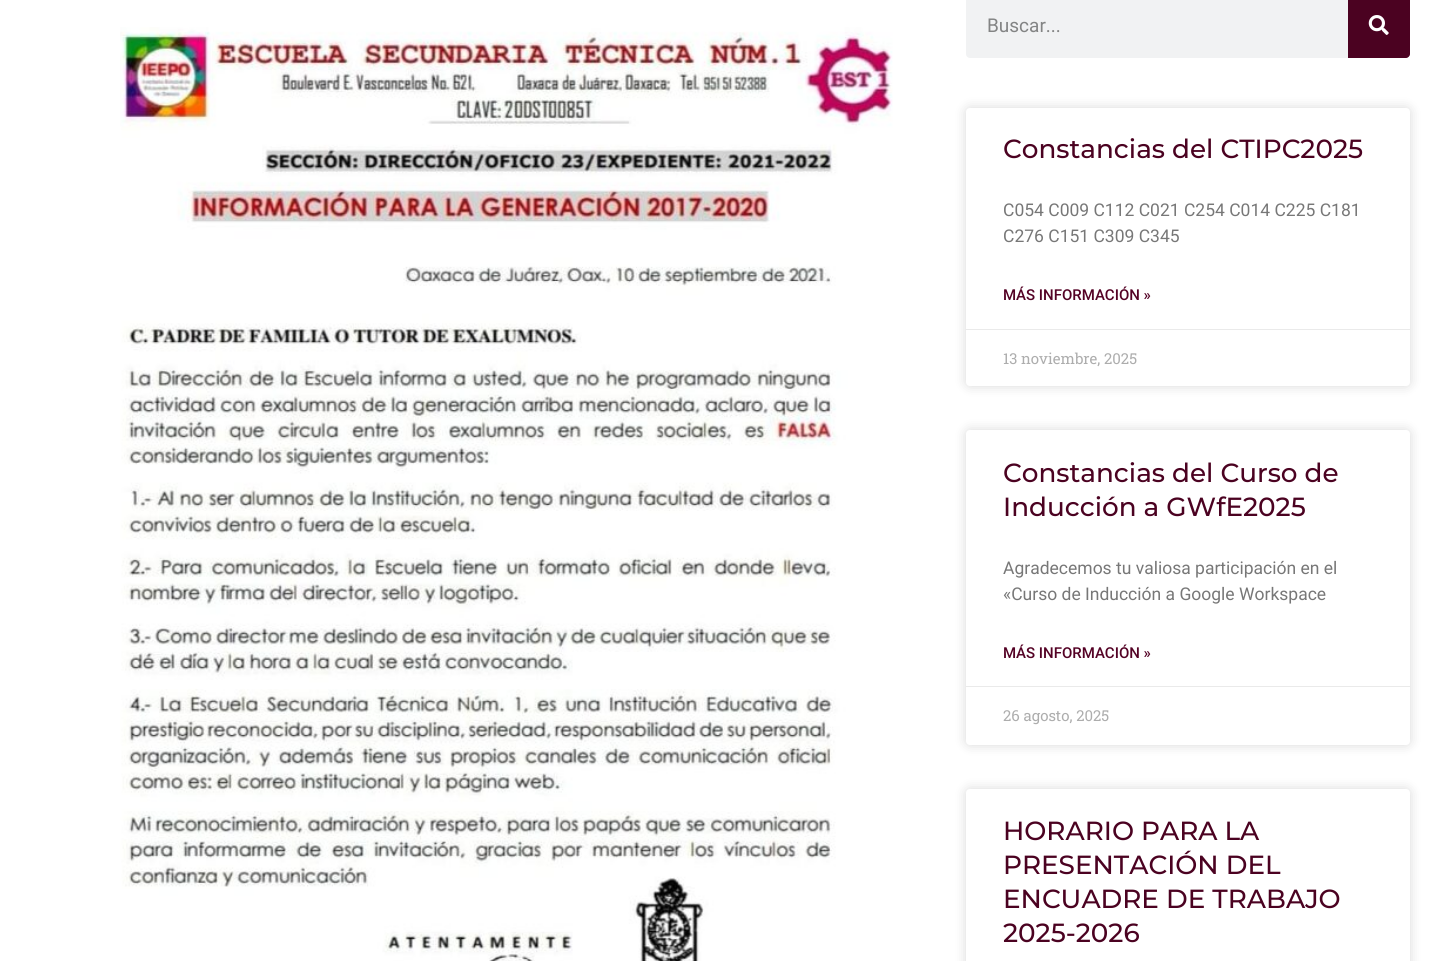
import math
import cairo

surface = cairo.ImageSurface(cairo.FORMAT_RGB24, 1437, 961)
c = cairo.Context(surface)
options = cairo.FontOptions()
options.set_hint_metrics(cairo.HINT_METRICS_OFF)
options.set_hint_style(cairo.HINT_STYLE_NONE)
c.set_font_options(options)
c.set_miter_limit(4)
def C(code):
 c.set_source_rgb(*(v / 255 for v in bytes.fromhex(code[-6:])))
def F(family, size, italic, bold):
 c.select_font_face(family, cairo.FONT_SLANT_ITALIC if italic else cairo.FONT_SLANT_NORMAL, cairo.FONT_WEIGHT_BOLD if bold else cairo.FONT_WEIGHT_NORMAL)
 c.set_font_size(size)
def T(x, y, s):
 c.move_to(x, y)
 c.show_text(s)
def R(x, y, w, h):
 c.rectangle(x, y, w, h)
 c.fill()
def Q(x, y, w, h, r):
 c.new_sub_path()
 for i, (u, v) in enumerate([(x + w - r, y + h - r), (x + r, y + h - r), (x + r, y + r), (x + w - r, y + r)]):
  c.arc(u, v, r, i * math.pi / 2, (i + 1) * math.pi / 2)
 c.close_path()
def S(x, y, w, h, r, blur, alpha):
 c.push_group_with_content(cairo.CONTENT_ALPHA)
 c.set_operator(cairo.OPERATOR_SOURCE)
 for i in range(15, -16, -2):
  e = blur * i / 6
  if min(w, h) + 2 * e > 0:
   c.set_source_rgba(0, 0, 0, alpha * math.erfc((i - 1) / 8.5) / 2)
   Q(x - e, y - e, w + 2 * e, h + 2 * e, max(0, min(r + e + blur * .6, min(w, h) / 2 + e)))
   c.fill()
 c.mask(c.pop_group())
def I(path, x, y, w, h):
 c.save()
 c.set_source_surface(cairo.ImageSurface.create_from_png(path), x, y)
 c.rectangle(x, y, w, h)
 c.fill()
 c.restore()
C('ffffff')
c.paint()
I('1.png',120,27,773,934)
C('f1f2f3')
Q(966,-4,444,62,4)
c.fill()
F('Roboto',19,0,0)
C('838484')
T(987,32,'Buscar...')
C('4b0221')
c.new_path()
c.move_to(1348,-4)
c.line_to(1406,-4)
c.curve_to(1408,-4,1410,-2,1410,0)
c.line_to(1410,54)
c.curve_to(1410,56,1408,58,1406,58)
c.line_to(1348,58)
c.close_path()
c.fill()
I('2.png',1368,15,21,20)
C('000000')
S(966,108,444,278,4,6,.15)
C('ffffff')
Q(966,108,444,278,4)
c.fill()
F('Montserrat Medium',26.25,0,0)
C('4b0221')
T(1003,158,'Constancias del CTIPC2025')
F('Roboto',17.5,0,0)
C('777777')
T(1003,216,'C054 C009 C112 C021 C254 C014 C225 C181')
T(1003,242,'C276 C151 C309 C345')
F('Roboto Medium',15,0,0)
C('540225')
T(1003,300,'MÁS INFORMACIÓN »')
C('eaeaea')
R(966,329,444,1)
F('Roboto Slab',15,0,0)
C('adadad')
T(1003,364,'13 noviembre, 2025')
C('000000')
S(966,430,444,315,4,6,.15)
C('ffffff')
Q(966,430,444,315,4)
c.fill()
F('Montserrat Medium',26.25,0,0)
C('4b0221')
T(1003,482,'Constancias del Curso de')
T(1003,516,'Inducción a GWfE2025')
F('Roboto',17.5,0,0)
C('777777')
T(1003,574,'Agradecemos tu valiosa participación en el')
T(1003,600,'«Curso de Inducción a Google Workspace')
F('Roboto Medium',15,0,0)
C('540225')
T(1003,658,'MÁS INFORMACIÓN »')
C('eaeaea')
R(966,686,444,1)
F('Roboto Slab',15,0,0)
C('adadad')
T(1003,721,'26 agosto, 2025')
C('000000')
S(966,789,444,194,4,6,.15)
C('ffffff')
Q(966,789,444,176,4)
c.fill()
F('Montserrat Medium',26.25,0,0)
C('4b0221')
T(1003,840,'HORARIO PARA LA')
T(1003,874,'PRESENTACIÓN DEL')
T(1003,908,'ENCUADRE DE TRABAJO')
T(1003,942,'2025-2026')
surface.write_to_png('o.png')
